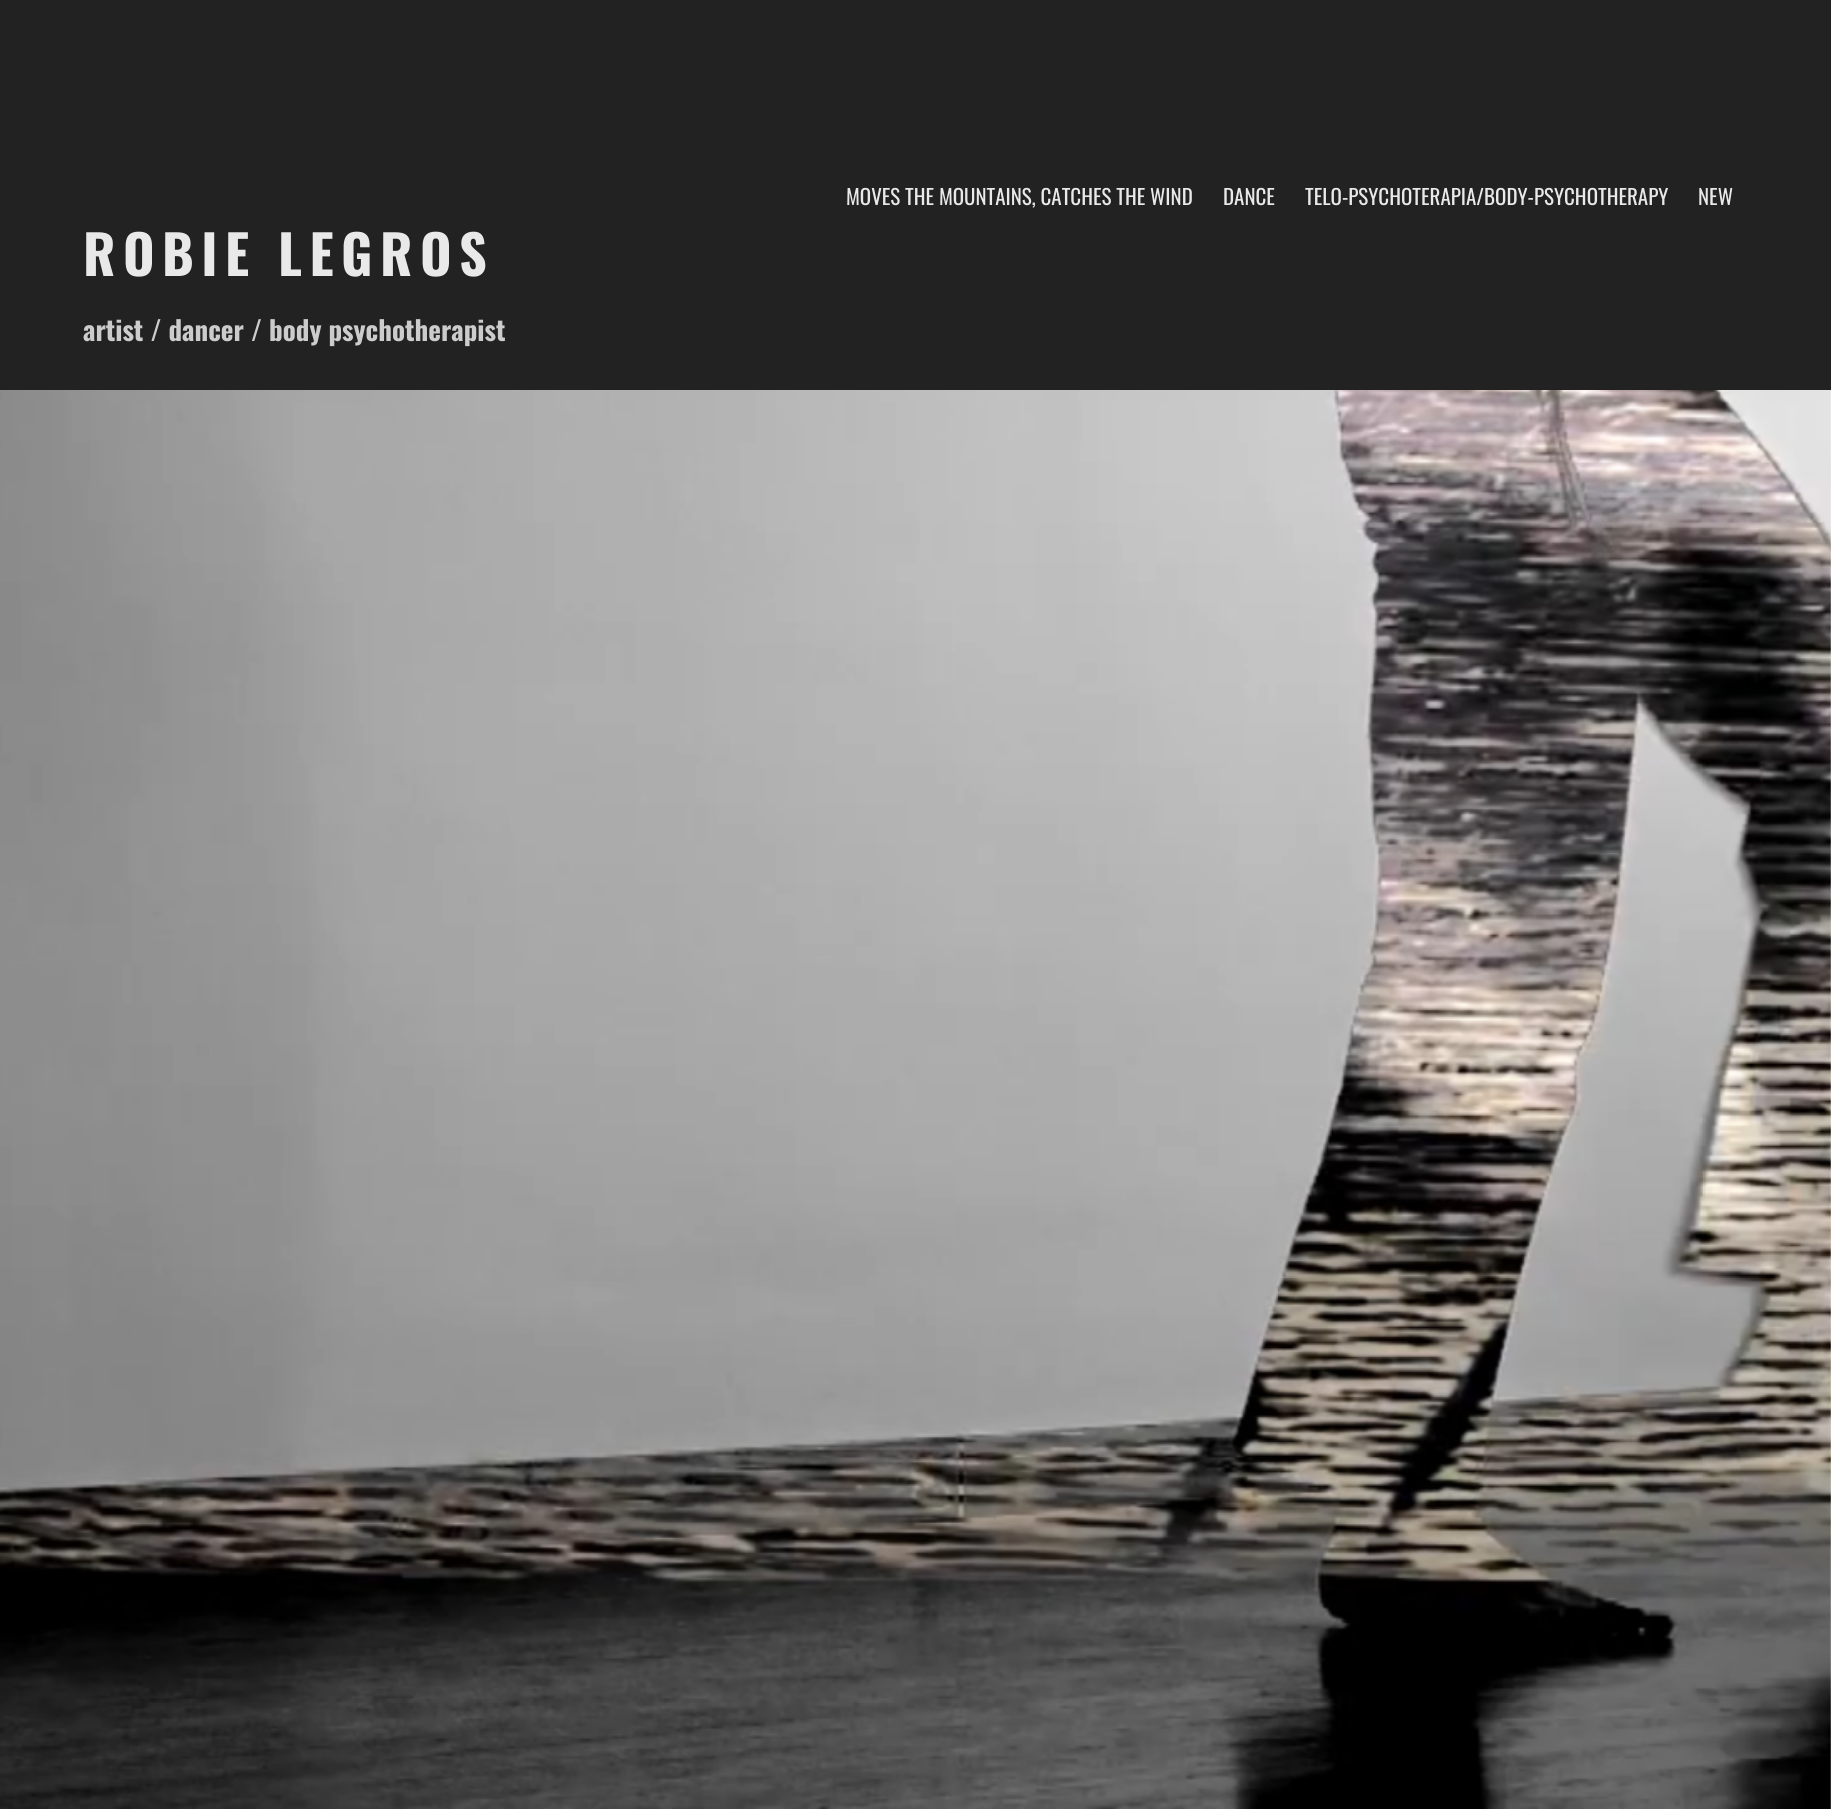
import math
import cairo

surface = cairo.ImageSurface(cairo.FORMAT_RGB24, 1831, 1809)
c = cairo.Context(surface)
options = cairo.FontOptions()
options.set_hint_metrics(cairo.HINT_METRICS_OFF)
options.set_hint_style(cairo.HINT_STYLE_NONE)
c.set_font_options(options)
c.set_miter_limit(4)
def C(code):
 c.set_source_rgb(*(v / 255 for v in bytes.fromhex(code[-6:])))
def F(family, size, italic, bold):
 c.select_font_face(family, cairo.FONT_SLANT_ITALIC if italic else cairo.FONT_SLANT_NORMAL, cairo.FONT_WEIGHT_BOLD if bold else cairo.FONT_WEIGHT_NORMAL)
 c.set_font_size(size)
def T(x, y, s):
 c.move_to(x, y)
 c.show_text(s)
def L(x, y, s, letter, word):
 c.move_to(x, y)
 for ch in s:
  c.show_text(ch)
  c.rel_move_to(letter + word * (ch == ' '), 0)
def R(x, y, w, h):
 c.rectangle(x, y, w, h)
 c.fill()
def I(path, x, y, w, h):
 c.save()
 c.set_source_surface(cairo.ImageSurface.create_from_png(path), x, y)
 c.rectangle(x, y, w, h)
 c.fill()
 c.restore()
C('ffffff')
c.paint()
C('222222')
R(0,0,1831,390)
F('Oswald',21,0,0)
C('e9e9e9')
T(846,205,'MOVES THE MOUNTAINS, CATCHES THE WIND')
T(1223,205,'DANCE')
T(1305,205,'TELO-PSYCHOTERAPIA/BODY-PSYCHOTHERAPY')
T(1698,205,'NEW')
F('Oswald',54,0,1)
L(83,276,'ROBIE LEGROS',7.5,0)
F('Oswald',27,0,1)
C('cccccc')
T(83,341,'artist / dancer / body psychotherapist')
I('1.png',0,390,1831,1419)
surface.write_to_png('o.png')
